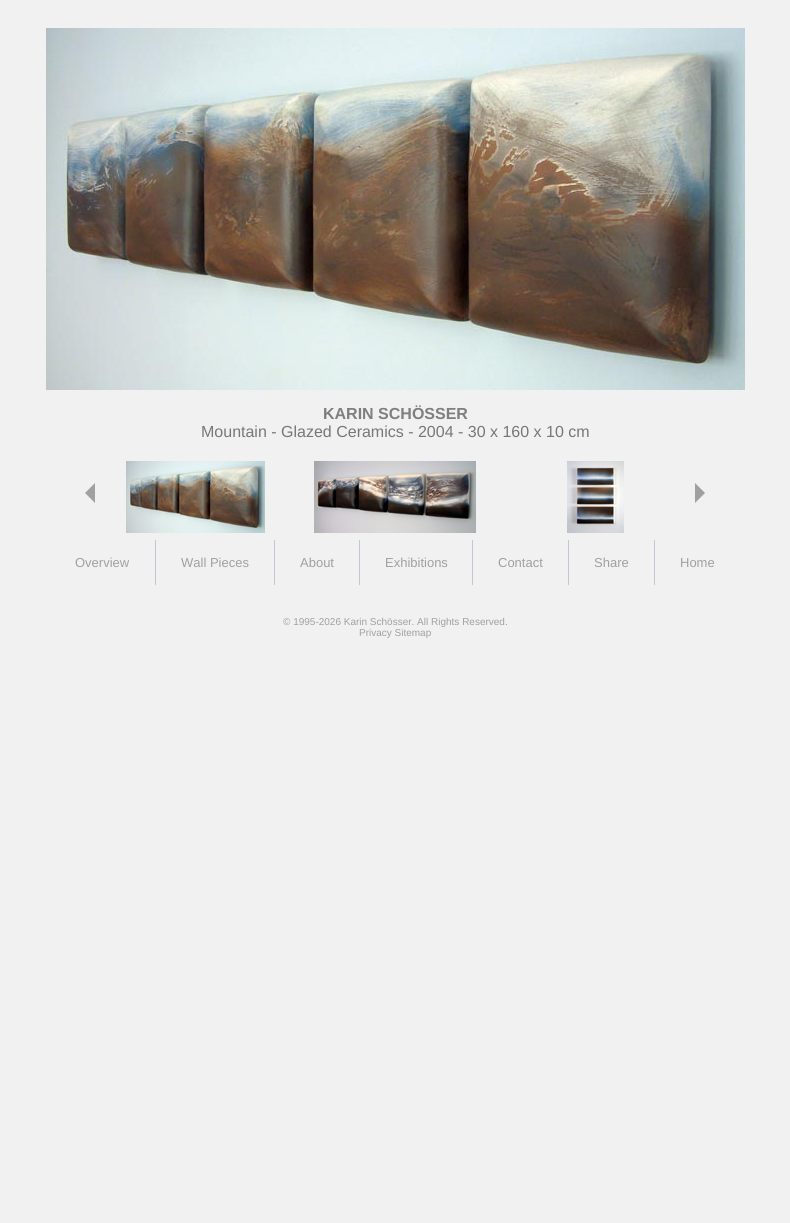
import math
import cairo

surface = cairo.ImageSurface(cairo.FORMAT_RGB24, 790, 1223)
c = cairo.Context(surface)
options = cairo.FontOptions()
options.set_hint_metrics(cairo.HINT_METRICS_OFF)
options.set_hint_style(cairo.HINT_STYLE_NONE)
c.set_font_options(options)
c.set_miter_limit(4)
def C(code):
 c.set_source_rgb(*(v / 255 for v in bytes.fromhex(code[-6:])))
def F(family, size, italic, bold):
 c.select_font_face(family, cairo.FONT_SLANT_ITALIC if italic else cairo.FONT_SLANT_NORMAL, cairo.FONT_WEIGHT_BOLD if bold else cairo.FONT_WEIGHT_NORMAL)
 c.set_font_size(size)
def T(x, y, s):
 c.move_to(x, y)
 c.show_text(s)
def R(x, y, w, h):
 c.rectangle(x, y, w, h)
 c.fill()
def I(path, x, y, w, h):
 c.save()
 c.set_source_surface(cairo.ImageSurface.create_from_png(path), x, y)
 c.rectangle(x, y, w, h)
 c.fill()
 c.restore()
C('f1f1f1')
c.paint()
I('1.png',46,28,699,362)
F('Liberation Sans',16,0,1)
C('807e7e')
T(323,419,'KARIN SCHÖSSER')
F('Liberation Sans',16,0,0)
C('777777')
T(201,437,'Mountain - Glazed Ceramics - 2004 - 30 x 160 x 10 cm')
C('a0a0a0')
c.new_path()
c.move_to(95,483)
c.line_to(95,503)
c.line_to(85,493)
c.close_path()
c.fill()
I('2.png',126,461,139,72)
I('3.png',314,461,162,72)
I('4.png',567,461,57,72)
c.new_path()
c.move_to(695,503)
c.line_to(695,483)
c.line_to(705,493)
c.close_path()
c.fill()
F('Liberation Sans',13,0,0)
T(75,567,'Overview')
C('c1c7d5')
R(155,540,1,45)
C('a0a0a0')
T(181,567,'Wall Pieces')
C('c1c7d5')
R(274,540,1,45)
C('a0a0a0')
T(300,567,'About')
C('c1c7d5')
R(359,540,1,45)
C('a0a0a0')
T(385,567,'Exhibitions')
C('c1c7d5')
R(472,540,1,45)
C('a0a0a0')
T(498,567,'Contact')
C('c1c7d5')
R(568,540,1,45)
C('a0a0a0')
T(594,567,'Share')
C('c1c7d5')
R(654,540,1,45)
C('a0a0a0')
T(680,567,'Home')
F('Liberation Sans',10,0,0)
T(283,625,'© 1995-2026 Karin Schösser. All Rights Reserved.')
T(359,636,'Privacy Sitemap')
surface.write_to_png('o.png')
